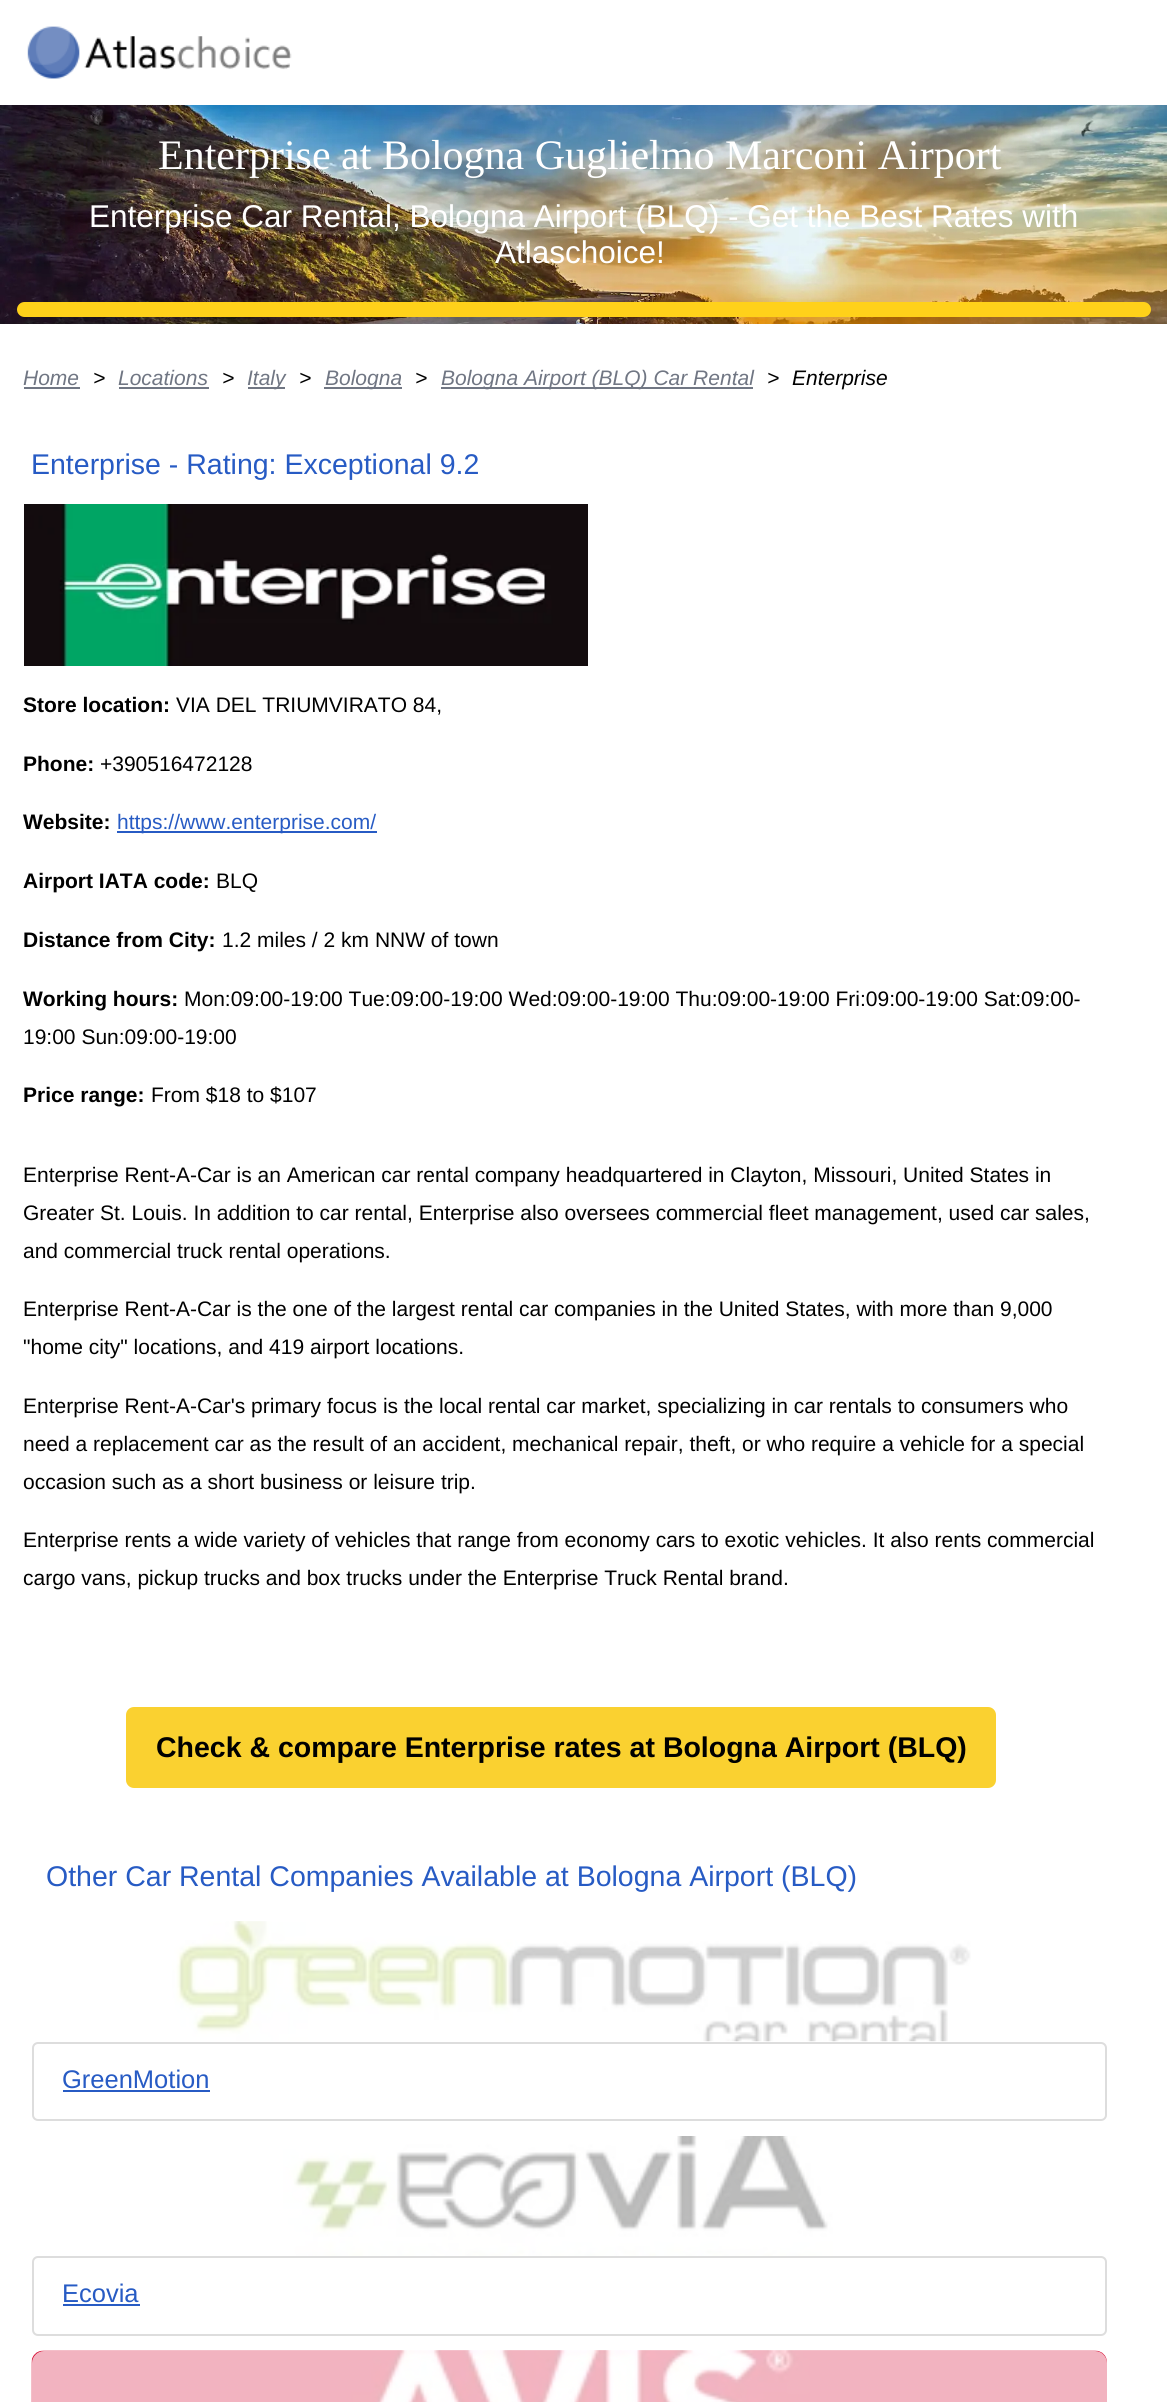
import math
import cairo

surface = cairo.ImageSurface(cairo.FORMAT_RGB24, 1167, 2402)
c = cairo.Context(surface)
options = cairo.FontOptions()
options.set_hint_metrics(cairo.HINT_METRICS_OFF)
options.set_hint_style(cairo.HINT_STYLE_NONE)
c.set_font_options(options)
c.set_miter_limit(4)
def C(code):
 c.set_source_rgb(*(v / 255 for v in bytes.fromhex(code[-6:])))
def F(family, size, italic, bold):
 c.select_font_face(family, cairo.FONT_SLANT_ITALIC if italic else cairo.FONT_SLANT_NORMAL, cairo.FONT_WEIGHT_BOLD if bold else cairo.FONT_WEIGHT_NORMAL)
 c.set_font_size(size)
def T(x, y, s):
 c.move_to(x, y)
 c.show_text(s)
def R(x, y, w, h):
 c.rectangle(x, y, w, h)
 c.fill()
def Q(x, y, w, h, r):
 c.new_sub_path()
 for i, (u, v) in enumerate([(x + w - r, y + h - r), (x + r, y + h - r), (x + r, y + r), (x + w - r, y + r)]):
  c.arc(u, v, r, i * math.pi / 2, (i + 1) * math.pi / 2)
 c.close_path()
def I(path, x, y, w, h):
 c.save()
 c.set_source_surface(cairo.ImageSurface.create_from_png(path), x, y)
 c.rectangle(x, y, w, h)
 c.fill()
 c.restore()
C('ffffff')
c.paint()
I('1.png',27,26,265,53)
I('2.png',0,105,1167,219)
F('Liberation Serif',42,0,0)
C('ffffff')
T(158,169,'Enterprise at Bologna Guglielmo Marconi Airport')
F('Liberation Sans',31.5,0,0)
T(89,227,'Enterprise Car Rental, Bologna Airport (BLQ) - Get the Best Rates with')
T(495,263,'Atlaschoice!')
C('ffd11a')
Q(17,302,1134,15,7.5)
c.fill()
F('Liberation Sans',21,1,0)
C('707683')
T(23,385,'Home')
R(24,387,56,2)
C('000000')
T(93,385,'>')
C('707683')
T(118,385,'Locations')
R(119,387,90,2)
C('000000')
T(222,385,'>')
C('707683')
R(248,387,37,2)
T(247,385,'Italy')
C('000000')
T(299,385,'>')
C('707683')
R(324,387,78,2)
T(325,385,'Bologna')
C('000000')
T(415,385,'>')
C('707683')
R(441,387,312,2)
T(441,385,'Bologna Airport (BLQ) Car Rental')
C('000000')
T(767,385,'>')
T(792,385,'Enterprise')
F('Liberation Sans',28.5,0,0)
C('275bc4')
T(31,474,'Enterprise - Rating: Exceptional 9.2')
I('3.png',24,504,564,162)
F('Liberation Sans',21,0,1)
C('000000')
T(23,712,'Store location:')
F('Liberation Sans',21,0,0)
T(176,712,'VIA DEL TRIUMVIRATO 84,')
F('Liberation Sans',21,0,1)
T(23,771,'Phone:')
F('Liberation Sans',21,0,0)
T(100,771,'+390516472128')
F('Liberation Sans',21,0,1)
T(23,829,'Website:')
C('275bc4')
R(117,831,260,2)
F('Liberation Sans',21,0,0)
T(117,829,'https://www.enterprise.com/')
F('Liberation Sans',21,0,1)
C('000000')
T(23,888,'Airport IATA code:')
F('Liberation Sans',21,0,0)
T(216,888,'BLQ')
F('Liberation Sans',21,0,1)
T(23,947,'Distance from City:')
F('Liberation Sans',21,0,0)
T(222,947,'1.2 miles / 2 km NNW of town')
F('Liberation Sans',21,0,1)
T(23,1006,'Working hours:')
F('Liberation Sans',21,0,0)
T(184,1006,'Mon:09:00-19:00 Tue:09:00-19:00 Wed:09:00-19:00 Thu:09:00-19:00 Fri:09:00-19:00 Sat:09:00-')
T(23,1044,'19:00 Sun:09:00-19:00')
F('Liberation Sans',21,0,1)
T(23,1102,'Price range:')
F('Liberation Sans',21,0,0)
T(151,1102,'From $18 to $107')
T(23,1182,'Enterprise Rent-A-Car is an American car rental company headquartered in Clayton, Missouri, United States in')
T(23,1220,'Greater St. Louis. In addition to car rental, Enterprise also oversees commercial fleet management, used car sales,')
T(23,1258,'and commercial truck rental operations.')
T(23,1316,'Enterprise Rent-A-Car is the one of the largest rental car companies in the United States, with more than 9,000')
T(23,1354,'"home city" locations, and 419 airport locations.')
T(23,1413,'Enterprise Rent-A-Car\'s primary focus is the local rental car market, specializing in car rentals to consumers who')
T(23,1451,'need a replacement car as the result of an accident, mechanical repair, theft, or who require a vehicle for a special')
T(23,1489,'occasion such as a short business or leisure trip.')
T(23,1547,'Enterprise rents a wide variety of vehicles that range from economy cars to exotic vehicles. It also rents commercial')
T(23,1585,'cargo vans, pickup trucks and box trucks under the Enterprise Truck Rental brand.')
C('fad130')
Q(126,1707,870,81,8)
c.fill()
F('Liberation Sans',28.5,0,1)
C('000000')
T(156,1757,'Check & compare Enterprise rates at Bologna Airport (BLQ)')
F('Liberation Sans',28.5,0,0)
C('275bc4')
T(46,1886,'Other Car Rental Companies Available at Bologna Airport (BLQ)')
I('4.png',172,1921,799,121)
c.set_source_rgba(1,1,1,0.7)
c.new_path()
c.move_to(44,1922)
c.line_to(1095,1922)
c.curve_to(1101.5,1922,1107,1927.5,1107,1934)
c.line_to(1107,2042)
c.line_to(32,2042)
c.line_to(32,1934)
c.curve_to(32,1927.5,37.5,1922,44,1922)
c.close_path()
c.fill()
Q(33,2043,1073,77,5)
C('dddddd')
c.stroke()
F('Liberation Sans',25.5,0,0)
C('275bc4')
T(62,2088,'GreenMotion')
R(63,2090,147,2)
I('5.png',283,2136,550,120)
c.set_source_rgba(1,1,1,0.7)
c.new_path()
c.move_to(44,2136)
c.line_to(1095,2136)
c.curve_to(1101.5,2136,1107,2141.5,1107,2148)
c.line_to(1107,2256)
c.line_to(32,2256)
c.line_to(32,2148)
c.curve_to(32,2141.5,37.5,2136,44,2136)
c.close_path()
c.fill()
Q(33,2257,1073,78,5)
C('dddddd')
c.stroke()
C('275bc4')
T(62,2302,'Ecovia')
R(63,2304,77,2)
I('6.png',31,2350,1076,52)
c.set_source_rgba(1,1,1,0.7)
c.new_path()
c.move_to(44,2351)
c.line_to(1095,2351)
c.curve_to(1101.5,2351,1107,2356.5,1107,2363)
c.line_to(1107,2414)
c.line_to(32,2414)
c.line_to(32,2363)
c.curve_to(32,2356.5,37.5,2351,44,2351)
c.close_path()
c.fill()
surface.write_to_png('o.png')
